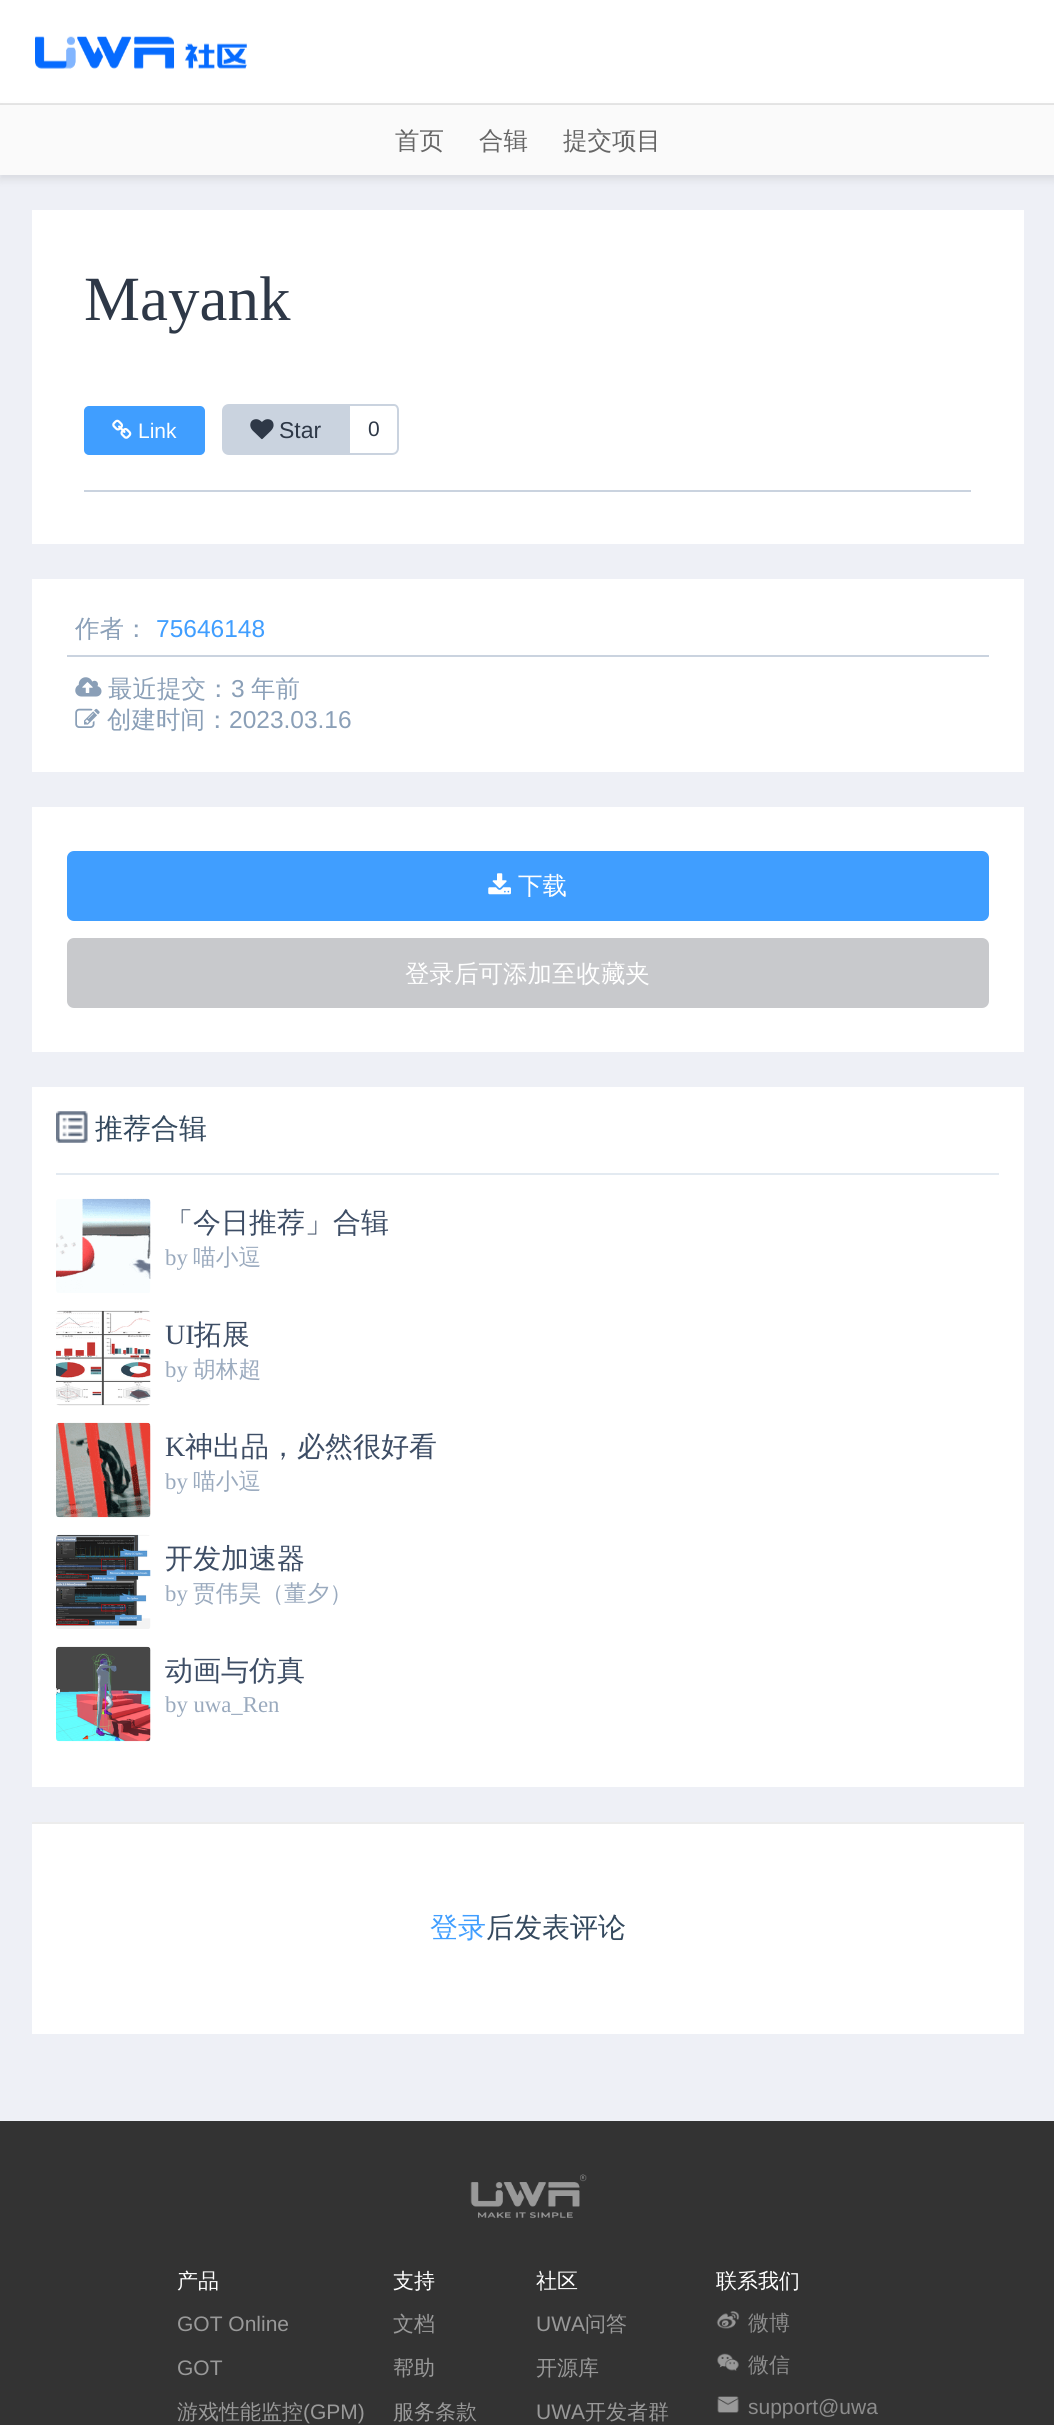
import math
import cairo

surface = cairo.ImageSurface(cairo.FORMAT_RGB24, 1054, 2425)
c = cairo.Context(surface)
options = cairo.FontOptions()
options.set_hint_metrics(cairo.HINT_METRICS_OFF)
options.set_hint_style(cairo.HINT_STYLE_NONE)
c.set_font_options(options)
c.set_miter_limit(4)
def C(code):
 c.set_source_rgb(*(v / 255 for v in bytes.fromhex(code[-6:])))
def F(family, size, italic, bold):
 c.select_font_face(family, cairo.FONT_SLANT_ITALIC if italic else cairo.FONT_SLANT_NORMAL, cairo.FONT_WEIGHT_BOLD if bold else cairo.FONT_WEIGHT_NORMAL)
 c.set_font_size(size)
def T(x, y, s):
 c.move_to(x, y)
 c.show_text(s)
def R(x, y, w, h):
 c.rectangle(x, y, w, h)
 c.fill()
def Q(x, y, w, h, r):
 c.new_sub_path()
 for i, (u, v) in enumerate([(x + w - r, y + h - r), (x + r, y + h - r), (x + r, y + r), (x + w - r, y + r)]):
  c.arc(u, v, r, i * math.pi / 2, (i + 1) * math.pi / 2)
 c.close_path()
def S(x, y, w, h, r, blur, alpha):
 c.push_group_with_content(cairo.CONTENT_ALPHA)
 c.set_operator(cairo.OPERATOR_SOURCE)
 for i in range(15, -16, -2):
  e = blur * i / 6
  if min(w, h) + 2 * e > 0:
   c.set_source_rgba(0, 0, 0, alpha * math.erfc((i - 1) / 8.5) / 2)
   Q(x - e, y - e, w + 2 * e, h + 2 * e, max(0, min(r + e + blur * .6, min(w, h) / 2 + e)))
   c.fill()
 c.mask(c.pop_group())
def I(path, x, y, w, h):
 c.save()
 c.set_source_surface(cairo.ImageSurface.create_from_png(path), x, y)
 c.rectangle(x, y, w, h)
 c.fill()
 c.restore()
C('eef0f6')
c.paint()
C('ffffff')
R(0,0,1054,103)
C('e7e7e7')
R(0,103,1054,2)
I('1.png',35,36,212,33)
C('000000')
S(0,109,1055,70,0,4.5,.1)
C('fafafa')
R(0,105,1054,70)
F('WenQuanYi Zen Hei Medium',24.5,0,0)
C('666666')
T(395,149,'首页')
T(479,149,'合辑')
T(563,149,'提交项目')
C('ffffff')
R(32,210,992,334)
F('Liberation Serif',63,0,0)
C('2e3847')
T(84,320,'Mayank')
C('409eff')
Q(85,407,119,47,4)
c.fill_preserve()
c.stroke()
I('2.png',112,419,20,20)
F('Liberation Sans',21,0,0)
C('ffffff')
T(138,438,'Link')
C('cad3df')
c.new_path()
c.move_to(229,405)
c.line_to(349,405)
c.line_to(349,454)
c.line_to(229,454)
c.curve_to(225.5,454,223,451.5,223,448)
c.line_to(223,411)
c.curve_to(223,407.5,225.5,405,229,405)
c.close_path()
c.fill_preserve()
c.stroke()
I('3.png',250,419,24,21)
F('Liberation Sans',23,0,0)
C('2e3847')
T(279,438,'Star')
C('cad3df')
c.set_fill_rule(cairo.FILL_RULE_EVEN_ODD)
c.new_path()
c.move_to(350,404)
c.line_to(394,404)
c.curve_to(397,404,399,407,399,410)
c.line_to(399,448)
c.curve_to(399,452,396,455,392,455)
c.line_to(350,455)
c.close_path()
c.move_to(350,406)
c.line_to(394,406)
c.curve_to(396,406,397,408,397,410)
c.line_to(397,448)
c.curve_to(397,451,395,453,392,453)
c.line_to(350,453)
c.close_path()
c.fill()
F('Liberation Sans',21,0,0)
C('2e3847')
T(368,436,'0')
C('cad3df')
R(84,490,887,2)
C('ffffff')
R(32,579,992,193)
C('cad3df')
R(67,655,922,2)
F('WenQuanYi Zen Hei Medium',24.5,0,0)
C('8a9fb7')
T(75,637,'作者：')
F('Liberation Sans',24.5,0,0)
C('409eff')
T(156,637,'75646148')
I('4.png',75,677,27,20)
F('WenQuanYi Zen Hei Medium',24.5,0,0)
C('8a9fb7')
T(108,697,'最近提交：')
F('Liberation Sans',24.5,0,0)
T(231,697,'3')
F('WenQuanYi Zen Hei Medium',24.5,0,0)
T(251,697,'年前')
I('5.png',75,708,25,20)
T(107,728,'创建时间：')
F('Liberation Sans',24.5,0,0)
T(229,728,'2023.03.16')
C('ffffff')
R(32,807,992,245)
C('409eff')
Q(68,852,920,68,6)
c.fill_preserve()
c.stroke()
I('6.png',488,873,23,22)
F('WenQuanYi Zen Hei Medium',24.5,0,0)
C('ffffff')
T(518,894,'下载')
C('c8c9cc')
Q(68,939,920,68,6)
c.fill_preserve()
c.stroke()
C('ffffff')
T(405,982,'登录后可添加至收藏夹')
R(32,1087,992,700)
C('e3eaf1')
R(56,1173,943,2)
I('7.png',56,1111,32,32)
F('WenQuanYi Zen Hei Medium',28,0,0)
C('34495e')
T(95,1138,'推荐合辑')
I('8.png',56,1198,95,95)
C('3d4d65')
T(165,1232,'「今日推荐」合辑')
F('Liberation Serif',22.75,0,0)
C('9aaabe')
T(165,1265,'by')
F('WenQuanYi Zen Hei Medium',22.75,0,0)
T(193,1265,'喵小逗')
I('9.png',56,1310,95,96)
F('Liberation Serif',28,0,0)
C('3d4d65')
T(165,1344,'UI')
F('WenQuanYi Zen Hei Medium',28,0,0)
T(194,1344,'拓展')
F('Liberation Serif',22.75,0,0)
C('9aaabe')
T(165,1377,'by')
F('WenQuanYi Zen Hei Medium',22.75,0,0)
T(193,1377,'胡林超')
I('10.png',56,1422,95,96)
F('Liberation Serif',28,0,0)
C('3d4d65')
T(165,1456,'K')
F('WenQuanYi Zen Hei Medium',28,0,0)
T(185,1456,'神出品，必然很好看')
F('Liberation Serif',22.75,0,0)
C('9aaabe')
T(165,1489,'by')
F('WenQuanYi Zen Hei Medium',22.75,0,0)
T(193,1489,'喵小逗')
I('11.png',56,1534,95,95)
F('WenQuanYi Zen Hei Medium',28,0,0)
C('3d4d65')
T(165,1568,'开发加速器')
F('Liberation Serif',22.75,0,0)
C('9aaabe')
T(165,1601,'by')
F('WenQuanYi Zen Hei Medium',22.75,0,0)
T(193,1601,'贾伟昊（董夕）')
I('12.png',56,1646,95,96)
F('WenQuanYi Zen Hei Medium',28,0,0)
C('3d4d65')
T(165,1680,'动画与仿真')
F('Liberation Serif',22.75,0,0)
C('9aaabe')
T(165,1712,'by uwa_Ren')
C('ffffff')
R(32,1824,992,210)
C('ececec')
R(32,1822,992,2)
F('WenQuanYi Zen Hei Medium',28,0,0)
C('409eff')
T(430,1937,'登录')
C('34495e')
T(486,1937,'后发表评论')
C('333333')
R(0,2121,1054,304)
I('13.png',470,2174,117,45)
F('WenQuanYi Zen Hei Medium',21,0,0)
C('ffffff')
T(177,2288,'产品')
F('Liberation Sans',21,0,0)
C('999999')
T(177,2331,'GOT Online')
T(177,2375,'GOT')
F('WenQuanYi Zen Hei Medium',21,0,0)
T(177,2419,'游戏性能监控')
F('Liberation Sans',21,0,0)
T(303,2419,'(GPM)')
F('WenQuanYi Zen Hei Medium',21,0,0)
C('ffffff')
T(393,2288,'支持')
C('999999')
T(393,2331,'文档')
T(393,2375,'帮助')
T(393,2419,'服务条款')
C('ffffff')
T(536,2288,'社区')
F('Liberation Sans',21,0,0)
C('999999')
T(536,2331,'UWA')
F('WenQuanYi Zen Hei Medium',21,0,0)
T(585,2331,'问答')
T(536,2375,'开源库')
F('Liberation Sans',21,0,0)
T(536,2419,'UWA')
F('WenQuanYi Zen Hei Medium',21,0,0)
T(585,2419,'开发者群')
C('ffffff')
T(716,2288,'联系我们')
I('14.png',716,2311,24,18)
C('8c8c8c')
T(748,2330,'微博')
I('15.png',717,2353,22,18)
T(748,2372,'微信')
I('16.png',717,2396,22,17)
F('Liberation Sans',21,0,0)
T(748,2414,'support@uwa')
surface.write_to_png('o.png')
